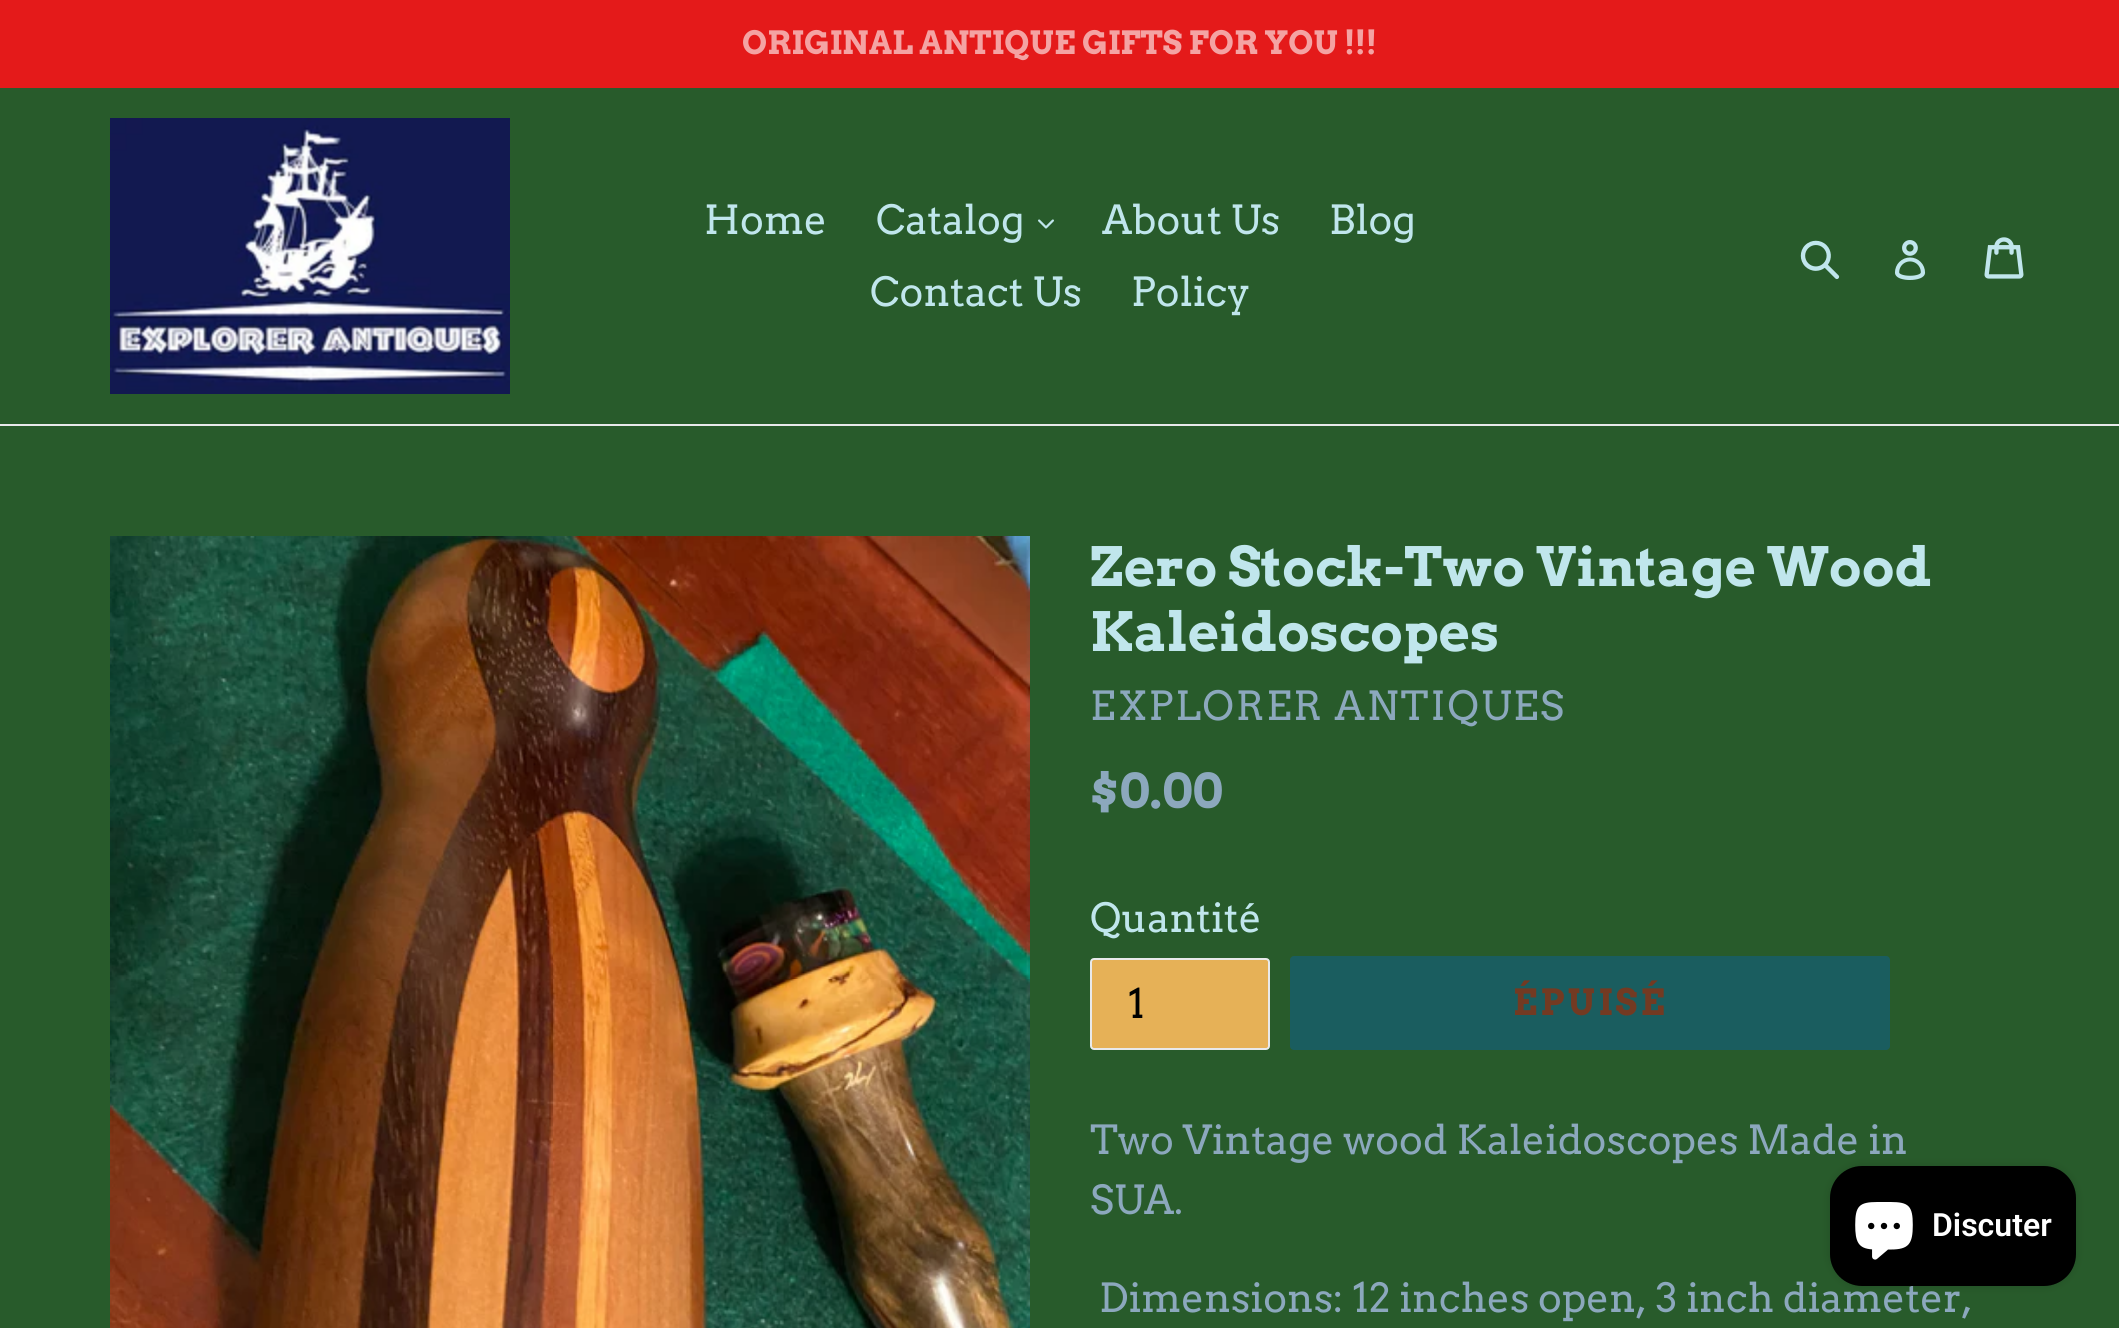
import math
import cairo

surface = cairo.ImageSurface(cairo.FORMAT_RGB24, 2119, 1328)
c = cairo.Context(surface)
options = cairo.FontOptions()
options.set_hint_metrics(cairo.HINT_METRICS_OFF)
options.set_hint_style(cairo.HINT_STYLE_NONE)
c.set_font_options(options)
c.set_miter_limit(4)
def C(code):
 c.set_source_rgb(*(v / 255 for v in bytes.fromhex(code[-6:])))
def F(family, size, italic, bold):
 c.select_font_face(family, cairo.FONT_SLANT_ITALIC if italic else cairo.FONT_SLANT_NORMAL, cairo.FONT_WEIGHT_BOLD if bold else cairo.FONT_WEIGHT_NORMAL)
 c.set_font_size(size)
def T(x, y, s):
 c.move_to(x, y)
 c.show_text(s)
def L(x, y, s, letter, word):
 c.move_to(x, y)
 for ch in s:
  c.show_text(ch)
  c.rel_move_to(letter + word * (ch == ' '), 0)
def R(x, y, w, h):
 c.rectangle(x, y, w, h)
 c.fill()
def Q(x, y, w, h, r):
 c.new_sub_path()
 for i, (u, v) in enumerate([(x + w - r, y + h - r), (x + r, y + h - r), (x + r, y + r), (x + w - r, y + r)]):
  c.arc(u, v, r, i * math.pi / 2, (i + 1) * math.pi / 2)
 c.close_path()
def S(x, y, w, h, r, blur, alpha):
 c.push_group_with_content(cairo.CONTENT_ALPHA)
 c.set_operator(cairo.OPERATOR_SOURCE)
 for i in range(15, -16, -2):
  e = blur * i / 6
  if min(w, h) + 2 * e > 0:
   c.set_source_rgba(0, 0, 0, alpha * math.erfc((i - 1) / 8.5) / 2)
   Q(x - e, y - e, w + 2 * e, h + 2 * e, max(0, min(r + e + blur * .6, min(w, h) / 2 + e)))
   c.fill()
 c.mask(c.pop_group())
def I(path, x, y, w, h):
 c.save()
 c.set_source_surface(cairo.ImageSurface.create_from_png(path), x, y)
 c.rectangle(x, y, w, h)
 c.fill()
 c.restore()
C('285b2b')
c.paint()
C('e41a1a')
R(0,0,2119,88)
F('Arvo',32,0,1)
C('f4a3a3')
T(742,54,'ORIGINAL ANTIQUE GIFTS FOR YOU !!!')
C('e8e9eb')
R(0,424,2119,2)
I('1.png',110,118,400,276)
F('Arvo',40,0,0)
C('c0e6ec')
T(704,234,'Home')
T(876,234,'Catalog')
I('2.png',1038,219,16,10)
T(1102,234,'About Us')
T(1329,234,'Blog')
T(870,306,'Contact Us')
T(1131,306,'Policy')
I('3.png',1800,240,40,40)
I('4.png',1895,240,31,40)
I('5.png',1984,237,40,42)
I('6.png',110,536,920,792)
F('Arvo',54,0,1)
T(1090,586,'Zero Stock-Two Vintage Wood')
T(1090,651,'Kaleidoscopes')
F('Arvo',40,0,0)
C('8ca8bd')
L(1090,720,'EXPLORER ANTIQUES',2,0)
F('Arvo',48,0,1)
T(1090,808,'$0.00')
F('Arvo',40,0,0)
C('c0e6ec')
T(1090,932,'Quantité')
C('e6b157')
Q(1091,959,178,90,3)
c.fill_preserve()
C('e8e9eb')
c.stroke()
C('000000')
T(1128,1018,'1')
C('1a5d5f')
Q(1290,956,600,94,4)
c.fill()
F('Arvo',36,0,1)
C('733a22')
L(1513,1015,'ÉPUISÉ',3,0)
F('Arvo',40,0,0)
C('8ca8bd')
T(1090,1154,'Two Vintage wood Kaleidoscopes Made in')
T(1090,1214,'SUA.')
T(1099,1312,'Dimensions: 12 inches open, 3 inch diameter,')
C('000000')
S(1830,1166,246,120,32,5,.15)
C('000000')
Q(1830,1166,246,120,32)
c.fill()
I('7.png',1855,1202,58,58)
F('Roboto SemiBold',32,0,0)
C('ffffff')
T(1932,1236,'Discuter')
surface.write_to_png('o.png')
